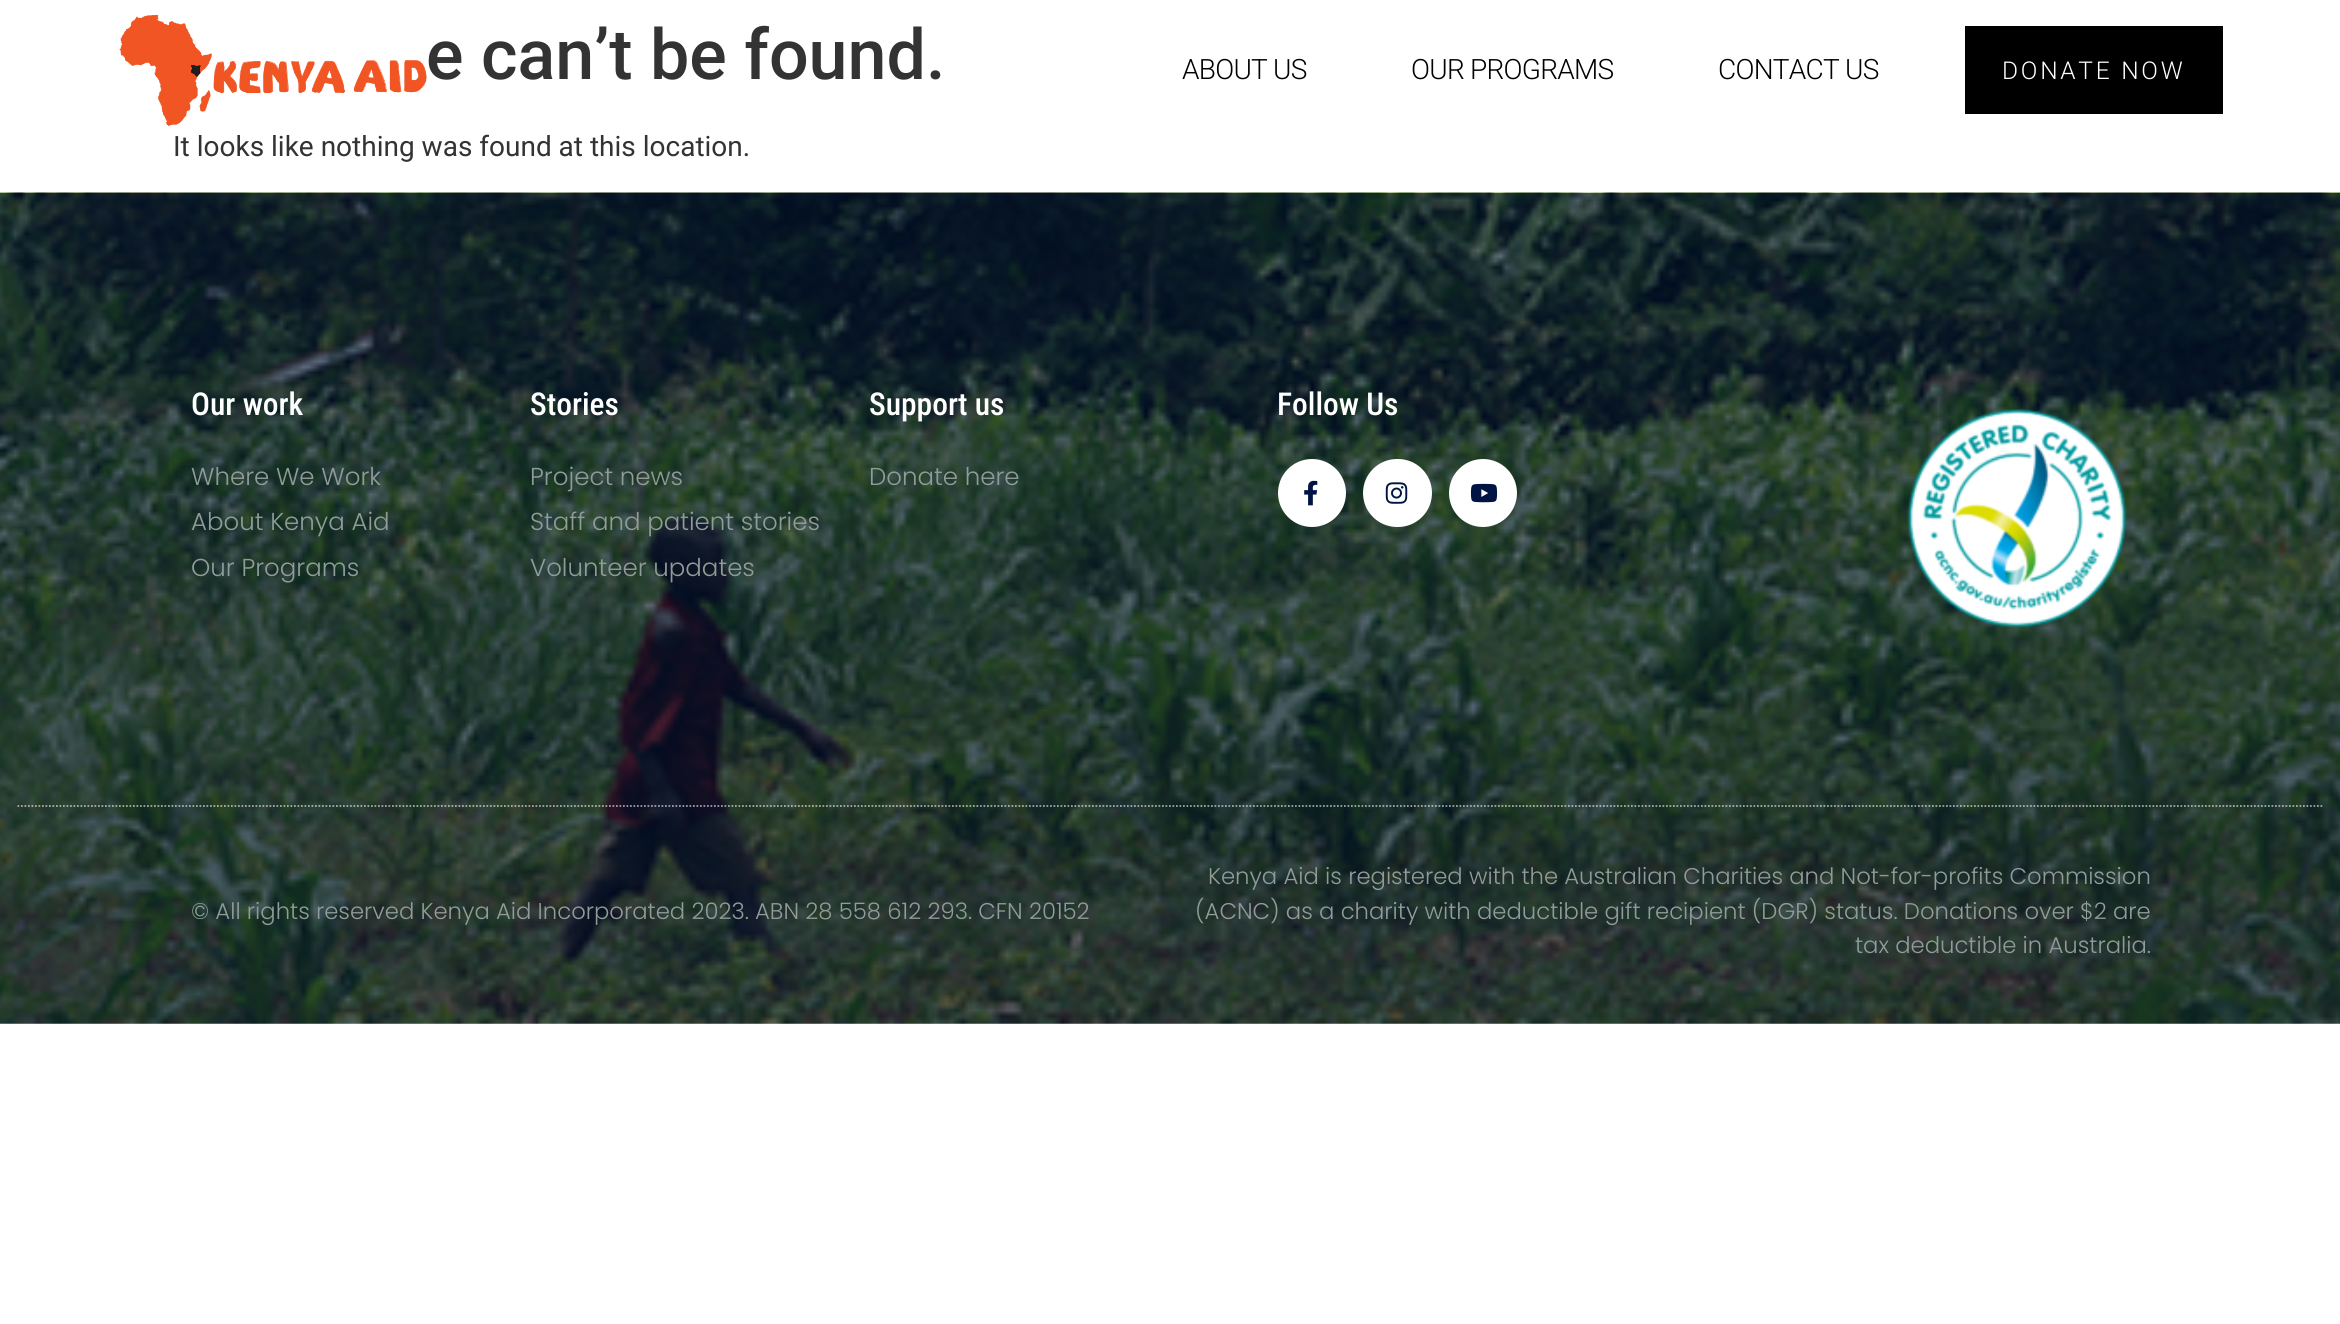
import math
import cairo

surface = cairo.ImageSurface(cairo.FORMAT_RGB24, 2340, 1324)
c = cairo.Context(surface)
options = cairo.FontOptions()
options.set_hint_metrics(cairo.HINT_METRICS_OFF)
options.set_hint_style(cairo.HINT_STYLE_NONE)
c.set_font_options(options)
c.set_miter_limit(4)
def C(code):
 c.set_source_rgb(*(v / 255 for v in bytes.fromhex(code[-6:])))
def F(family, size, italic, bold):
 c.select_font_face(family, cairo.FONT_SLANT_ITALIC if italic else cairo.FONT_SLANT_NORMAL, cairo.FONT_WEIGHT_BOLD if bold else cairo.FONT_WEIGHT_NORMAL)
 c.set_font_size(size)
def T(x, y, s):
 c.move_to(x, y)
 c.show_text(s)
def L(x, y, s, letter, word):
 c.move_to(x, y)
 for ch in s:
  c.show_text(ch)
  c.rel_move_to(letter + word * (ch == ' '), 0)
def R(x, y, w, h):
 c.rectangle(x, y, w, h)
 c.fill()
def Q(x, y, w, h, r):
 c.new_sub_path()
 for i, (u, v) in enumerate([(x + w - r, y + h - r), (x + r, y + h - r), (x + r, y + r), (x + w - r, y + r)]):
  c.arc(u, v, r, i * math.pi / 2, (i + 1) * math.pi / 2)
 c.close_path()
def I(path, x, y, w, h):
 c.save()
 c.set_source_surface(cairo.ImageSurface.create_from_png(path), x, y)
 c.rectangle(x, y, w, h)
 c.fill()
 c.restore()
C('ffffff')
c.paint()
F('Roboto Medium',70,0,0)
C('333333')
T(426,79,'e can’t be found.')
F('Roboto',28,0,0)
T(173,156,'It looks like nothing was found at this location.')
I('1.png',119,14,308,112)
F('Roboto Light',28,0,0)
C('000000')
L(1182,79,'ABOUT US',-.75,0)
L(1411,79,'OUR PROGRAMS',-.75,0)
L(1718,79,'CONTACT US',-.75,0)
R(1965,26,258,88)
F('Roboto Light',24.5,0,0)
C('ffffff')
L(2002,79,'DONATE NOW',2.75,0)
I('2.png',0,192,2340,832)
F('Roboto Condensed Medium',31.5,0,0)
T(191,415,'Our work')
F('Poppins Light',24.5,0,0)
C('909c98')
T(191,485,'Where We Work')
T(191,530,'About Kenya Aid')
T(191,576,'Our Programs')
F('Roboto Condensed Medium',31.5,0,0)
C('ffffff')
T(530,415,'Stories')
F('Poppins Light',24.5,0,0)
C('909c98')
T(530,485,'Project news')
T(530,530,'Staff and patient stories')
T(530,576,'Volunteer updates')
F('Roboto Condensed Medium',31.5,0,0)
C('ffffff')
T(869,415,'Support us')
F('Poppins Light',24.5,0,0)
C('909c98')
T(869,485,'Donate here')
F('Roboto Condensed Medium',31.5,0,0)
C('ffffff')
T(1277,415,'Follow Us')
c.new_path()
c.arc(1312,493,34,0,2 * math.pi)
c.fill()
I('3.png',1304,480,14,26)
Q(1363,459,69,68,34)
c.fill()
I('4.png',1385,482,23,22)
c.arc(1483,493,34,0,2 * math.pi)
c.fill()
I('5.png',1470,483,28,20)
I('6.png',1907,409,220,219)
c.new_path()
c.move_to(17.5,806)
c.line_to(2324,806)
c.set_source_rgba(1,1,1,0.59)
c.set_line_width(1.8)
c.set_dash([1.75,1.75])
c.stroke()
F('Poppins Light',22.75,0,0)
C('909c98')
T(191,919,'© All rights reserved Kenya Aid Incorporated 2023.')
T(755,919,'ABN 28 558 612 293. CFN 20152')
T(1208,884,'Kenya Aid is registered with the Australian Charities and Not-for-profits Commission')
T(1195,919,'(ACNC) as a charity with deductible gift recipient (DGR) status. Donations over $2 are')
T(1855,953,'tax deductible in Australia.')
surface.write_to_png('o.png')
